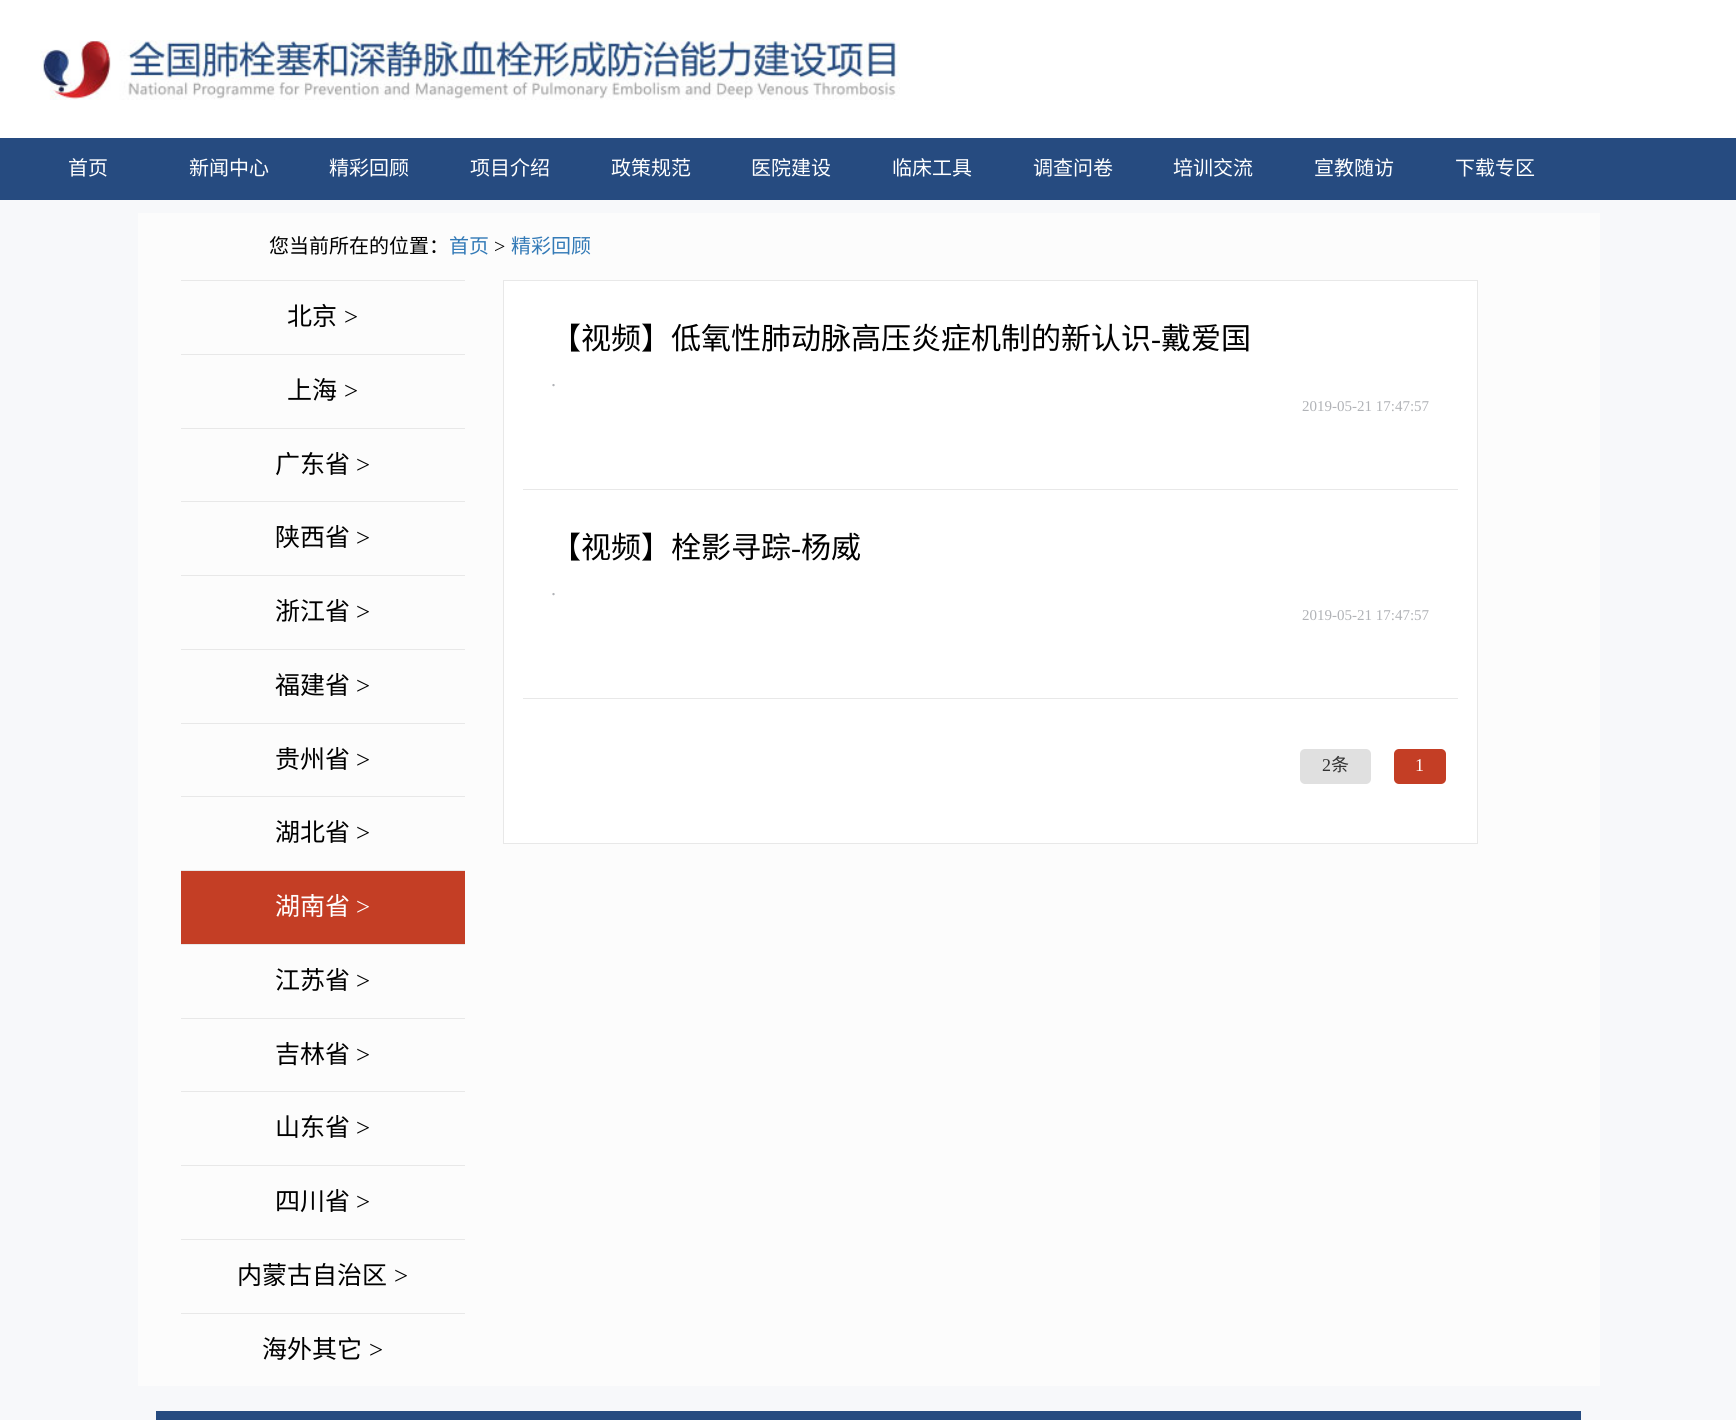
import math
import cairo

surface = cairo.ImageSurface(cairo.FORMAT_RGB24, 1736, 1420)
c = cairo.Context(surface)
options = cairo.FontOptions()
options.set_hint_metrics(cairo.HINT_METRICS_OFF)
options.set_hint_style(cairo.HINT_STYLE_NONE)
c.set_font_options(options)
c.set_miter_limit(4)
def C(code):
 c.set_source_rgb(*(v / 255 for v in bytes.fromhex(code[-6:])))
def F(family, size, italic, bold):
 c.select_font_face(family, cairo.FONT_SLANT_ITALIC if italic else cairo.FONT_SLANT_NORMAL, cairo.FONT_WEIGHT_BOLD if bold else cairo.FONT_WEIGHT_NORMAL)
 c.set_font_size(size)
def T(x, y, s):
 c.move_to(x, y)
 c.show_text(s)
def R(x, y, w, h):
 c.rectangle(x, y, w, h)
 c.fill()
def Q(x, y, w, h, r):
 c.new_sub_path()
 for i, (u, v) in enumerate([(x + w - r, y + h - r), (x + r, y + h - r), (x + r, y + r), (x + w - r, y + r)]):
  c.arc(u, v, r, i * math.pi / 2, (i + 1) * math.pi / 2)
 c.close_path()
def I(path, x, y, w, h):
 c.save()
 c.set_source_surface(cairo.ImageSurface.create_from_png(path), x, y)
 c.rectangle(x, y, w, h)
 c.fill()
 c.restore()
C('f7f8fa')
c.paint()
C('ffffff')
R(0,0,1736,138)
I('1.png',40,40,860,60)
C('264b80')
R(0,138,1736,62)
F('Noto Sans CJK SC',20,0,0)
C('ffffff')
T(68,175,'首页')
T(189,175,'新闻中心')
T(329,175,'精彩回顾')
T(470,175,'项目介绍')
T(611,175,'政策规范')
T(751,175,'医院建设')
T(892,175,'临床工具')
T(1033,175,'调查问卷')
T(1173,175,'培训交流')
T(1314,175,'宣教随访')
T(1455,175,'下载专区')
C('fcfcfc')
R(138,213,1462,1173)
C('000000')
T(269,253,'您当前所在的位置：')
C('337ab7')
T(449,253,'首页')
F('Liberation Serif',20,0,0)
C('000000')
T(494,253,'>')
F('Noto Sans CJK SC',20,0,0)
C('337ab7')
T(511,253,'精彩回顾')
C('e8e8e8')
R(181,280,284,1)
F('Noto Sans CJK SC',25,0,0)
C('000000')
T(287,325,'北京')
F('Liberation Serif',25,0,0)
T(344,325,'>')
C('e8e8e8')
R(181,354,284,1)
F('Noto Sans CJK SC',25,0,0)
C('000000')
T(287,399,'上海')
F('Liberation Serif',25,0,0)
T(344,399,'>')
C('e8e8e8')
R(181,428,284,1)
F('Noto Sans CJK SC',25,0,0)
C('000000')
T(275,473,'广东省')
F('Liberation Serif',25,0,0)
T(356,473,'>')
C('e8e8e8')
R(181,501,284,1)
F('Noto Sans CJK SC',25,0,0)
C('000000')
T(275,546,'陕西省')
F('Liberation Serif',25,0,0)
T(356,546,'>')
C('e8e8e8')
R(181,575,284,1)
F('Noto Sans CJK SC',25,0,0)
C('000000')
T(275,620,'浙江省')
F('Liberation Serif',25,0,0)
T(356,620,'>')
C('e8e8e8')
R(181,649,284,1)
F('Noto Sans CJK SC',25,0,0)
C('000000')
T(275,694,'福建省')
F('Liberation Serif',25,0,0)
T(356,694,'>')
C('e8e8e8')
R(181,723,284,1)
F('Noto Sans CJK SC',25,0,0)
C('000000')
T(275,768,'贵州省')
F('Liberation Serif',25,0,0)
T(356,768,'>')
C('e8e8e8')
R(181,796,284,1)
F('Noto Sans CJK SC',25,0,0)
C('000000')
T(275,841,'湖北省')
F('Liberation Serif',25,0,0)
T(356,841,'>')
C('c43e25')
R(181,871,284,73)
C('e8e8e8')
R(181,870,284,1)
F('Noto Sans CJK SC',25,0,0)
C('ffffff')
T(275,915,'湖南省')
F('Liberation Serif',25,0,0)
T(356,915,'>')
C('e8e8e8')
R(181,944,284,1)
F('Noto Sans CJK SC',25,0,0)
C('000000')
T(275,989,'江苏省')
F('Liberation Serif',25,0,0)
T(356,989,'>')
C('e8e8e8')
R(181,1018,284,1)
F('Noto Sans CJK SC',25,0,0)
C('000000')
T(275,1063,'吉林省')
F('Liberation Serif',25,0,0)
T(356,1063,'>')
C('e8e8e8')
R(181,1091,284,1)
F('Noto Sans CJK SC',25,0,0)
C('000000')
T(275,1136,'山东省')
F('Liberation Serif',25,0,0)
T(356,1136,'>')
C('e8e8e8')
R(181,1165,284,1)
F('Noto Sans CJK SC',25,0,0)
C('000000')
T(275,1210,'四川省')
F('Liberation Serif',25,0,0)
T(356,1210,'>')
C('e8e8e8')
R(181,1239,284,1)
F('Noto Sans CJK SC',25,0,0)
C('000000')
T(237,1284,'内蒙古自治区')
F('Liberation Serif',25,0,0)
T(394,1284,'>')
C('e8e8e8')
R(181,1313,284,1)
F('Noto Sans CJK SC',25,0,0)
C('000000')
T(262,1358,'海外其它')
F('Liberation Serif',25,0,0)
T(369,1358,'>')
C('ffffff')
c.rectangle(503.5,280.5,974,563)
c.fill_preserve()
C('e8e8e8')
c.set_line_width(1)
c.stroke()
R(523,489,935,1)
F('Noto Sans CJK SC',30,0,0)
C('000000')
T(551,349,'【视频】低氧性肺动脉高压炎症机制的新认识')
F('Liberation Serif',30,0,0)
T(1151,349,'-')
F('Noto Sans CJK SC',30,0,0)
T(1161,349,'戴爱国')
F('Liberation Serif',20,0,0)
C('b1b3b7')
T(551,386,'.')
F('Liberation Serif',15,0,0)
T(1302,411,'2019-05-21 17:47:57')
C('e8e8e8')
R(523,698,935,1)
F('Noto Sans CJK SC',30,0,0)
C('000000')
T(551,558,'【视频】栓影寻踪')
F('Liberation Serif',30,0,0)
T(791,558,'-')
F('Noto Sans CJK SC',30,0,0)
T(801,558,'杨威')
F('Liberation Serif',20,0,0)
C('b1b3b7')
T(551,595,'.')
F('Liberation Serif',15,0,0)
T(1302,620,'2019-05-21 17:47:57')
C('e0e0e0')
Q(1300,749,71,35,5)
c.fill()
F('Liberation Serif',18,0,0)
C('333333')
T(1322,771,'2')
F('Noto Sans CJK SC',18,0,0)
T(1331,771,'条')
C('c43e25')
Q(1394,749,52,35,5)
c.fill()
F('Liberation Serif',18,0,0)
C('ffffff')
T(1415,771,'1')
C('264b80')
R(156,1411,1425,9)
surface.write_to_png('o.png')
